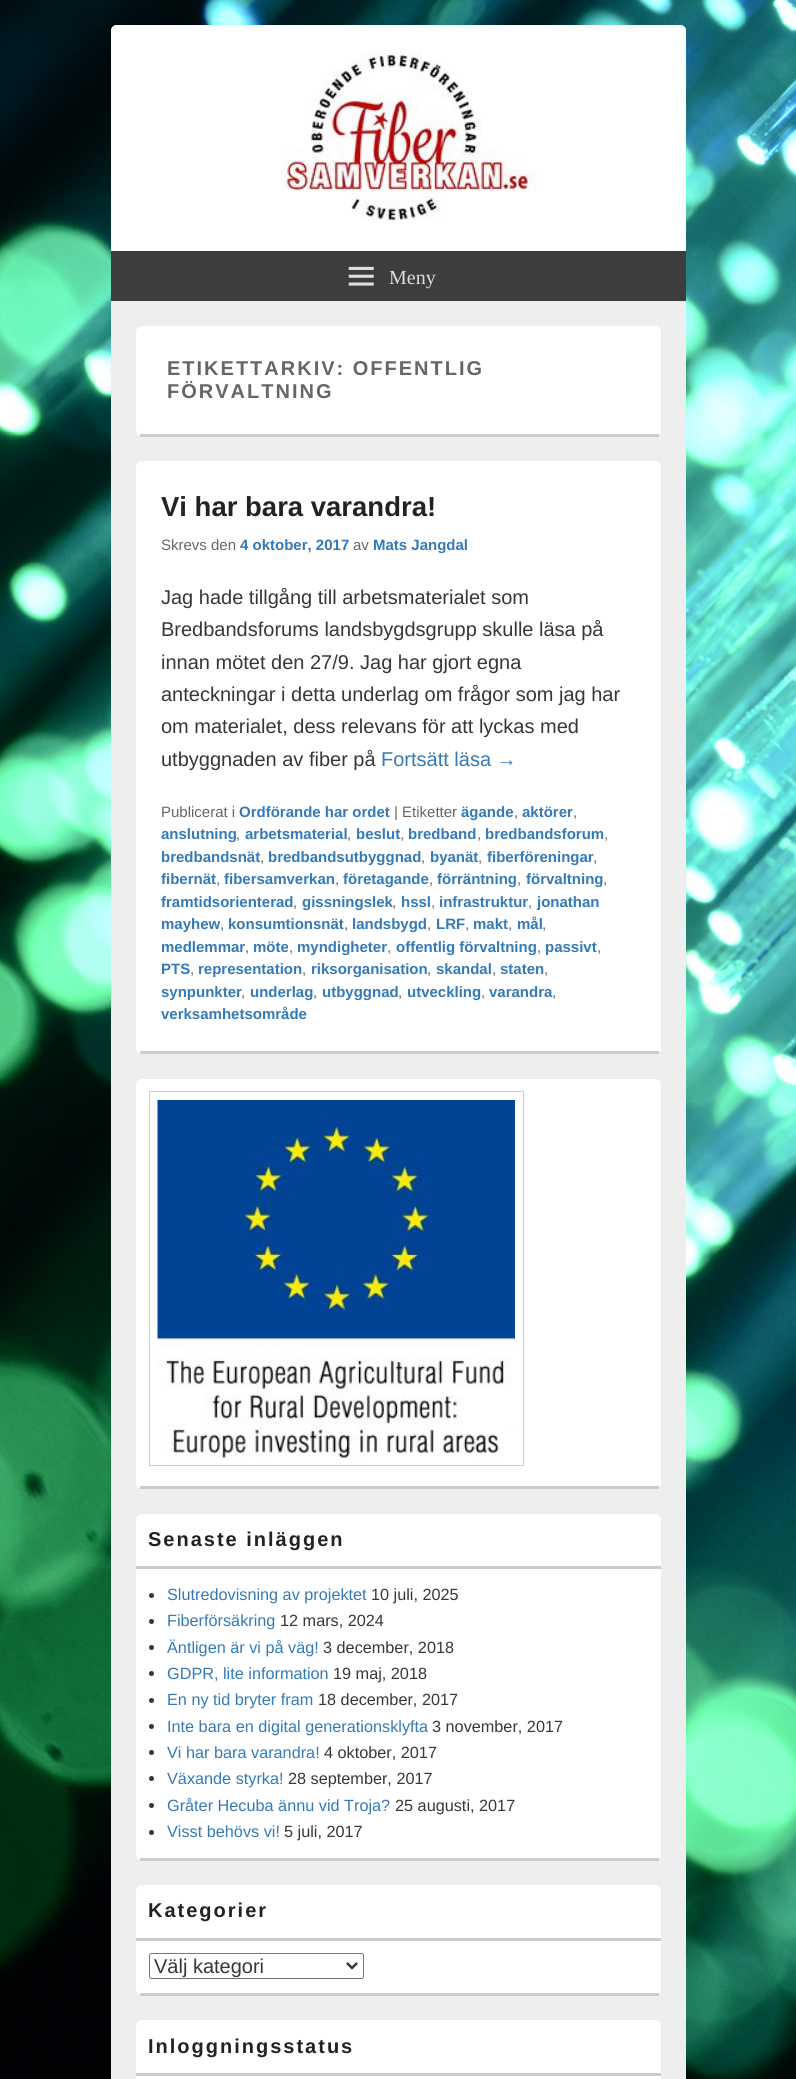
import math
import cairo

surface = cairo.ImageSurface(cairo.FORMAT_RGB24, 796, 2079)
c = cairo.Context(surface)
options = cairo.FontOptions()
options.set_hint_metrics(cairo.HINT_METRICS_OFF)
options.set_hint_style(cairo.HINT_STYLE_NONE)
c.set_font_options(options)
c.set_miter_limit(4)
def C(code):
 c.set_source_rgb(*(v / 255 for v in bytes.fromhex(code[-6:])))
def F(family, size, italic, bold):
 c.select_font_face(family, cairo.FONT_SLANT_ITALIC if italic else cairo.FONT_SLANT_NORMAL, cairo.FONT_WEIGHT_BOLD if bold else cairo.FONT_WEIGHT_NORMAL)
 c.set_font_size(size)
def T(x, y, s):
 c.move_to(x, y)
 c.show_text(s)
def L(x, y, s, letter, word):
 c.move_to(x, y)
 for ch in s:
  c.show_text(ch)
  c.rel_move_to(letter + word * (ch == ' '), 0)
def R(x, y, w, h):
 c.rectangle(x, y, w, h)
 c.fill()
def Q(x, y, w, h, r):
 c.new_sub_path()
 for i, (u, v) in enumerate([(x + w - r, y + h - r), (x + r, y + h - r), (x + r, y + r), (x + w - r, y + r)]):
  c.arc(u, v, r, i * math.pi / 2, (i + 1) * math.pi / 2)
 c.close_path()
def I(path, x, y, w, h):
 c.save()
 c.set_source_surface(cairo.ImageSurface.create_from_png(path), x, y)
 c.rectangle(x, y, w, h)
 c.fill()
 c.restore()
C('ffffff')
c.paint()
I('1.png',0,0,796,2079)
C('eeeeee')
Q(111,25,575,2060,6)
c.fill()
C('ffffff')
c.new_path()
c.move_to(117,25)
c.line_to(680,25)
c.curve_to(683.5,25,686,27.5,686,31)
c.line_to(686,301)
c.line_to(111,301)
c.line_to(111,31)
c.curve_to(111,27.5,113.5,25,117,25)
c.close_path()
c.fill()
I('2.png',281,50,256,171)
C('3d3d3d')
R(111,251,575,50)
I('3.png',348,266,26,20)
F('Liberation Serif',20,0,0)
C('dddddd')
T(389,284,'Meny')
C('ffffff')
Q(136,326,525,110,6)
c.fill()
C('cccccc')
R(140,434,519,3)
F('Liberation Sans',20,0,1)
C('666666')
L(167,375,'ETIKETTARKIV: OFFENTLIG',2,0)
L(167,398,'FÖRVALTNING',2,0)
C('ffffff')
Q(136,461,525,593,6)
c.fill()
C('cccccc')
R(140,1051,519,3)
F('Liberation Sans',27.5,0,1)
C('222222')
T(161,516,'Vi har bara varandra!')
F('Liberation Sans',15,0,0)
C('666666')
T(161,550,'Skrevs den')
F('Liberation Sans',15,0,1)
C('337ab7')
T(240,550,'4 oktober, 2017')
F('Liberation Sans',15,0,0)
C('666666')
T(353,550,'av')
F('Liberation Sans',15,0,1)
C('337ab7')
T(373,550,'Mats Jangdal')
F('Liberation Sans',20,0,0)
C('373737')
T(161,604,'Jag hade tillgång till arbetsmaterialet som')
T(161,636,'Bredbandsforums landsbygdsgrupp skulle läsa på')
T(161,669,'innan mötet den 27/9. Jag har gjort egna')
T(161,701,'anteckningar i detta underlag om frågor som jag har')
T(161,733,'om materialet, dess relevans för att lyckas med')
T(161,766,'utbyggnaden av fiber på')
C('337ab7')
T(381,766,'Fortsätt läsa →')
F('Liberation Sans',15,0,0)
C('666666')
T(161,817,'Publicerat i')
F('Liberation Sans',15,0,1)
C('337ab7')
T(239,817,'Ordförande har ordet')
F('Liberation Sans',15,0,0)
C('666666')
T(394,817,'| Etiketter')
F('Liberation Sans',15,0,1)
C('337ab7')
T(461,817,'ägande')
F('Liberation Sans',15,0,0)
C('666666')
T(514,817,',')
F('Liberation Sans',15,0,1)
C('337ab7')
T(522,817,'aktörer')
F('Liberation Sans',15,0,0)
C('666666')
T(573,817,',')
F('Liberation Sans',15,0,1)
C('337ab7')
T(161,839,'anslutning')
F('Liberation Sans',15,0,0)
C('666666')
T(236,839,',')
F('Liberation Sans',15,0,1)
C('337ab7')
T(245,839,'arbetsmaterial')
F('Liberation Sans',15,0,0)
C('666666')
T(347,839,',')
F('Liberation Sans',15,0,1)
C('337ab7')
T(356,839,'beslut')
F('Liberation Sans',15,0,0)
C('666666')
T(400,839,',')
F('Liberation Sans',15,0,1)
C('337ab7')
T(408,839,'bredband')
F('Liberation Sans',15,0,0)
C('666666')
T(477,839,',')
F('Liberation Sans',15,0,1)
C('337ab7')
T(485,839,'bredbandsforum')
F('Liberation Sans',15,0,0)
C('666666')
T(604,839,',')
F('Liberation Sans',15,0,1)
C('337ab7')
T(161,862,'bredbandsnät')
F('Liberation Sans',15,0,0)
C('666666')
T(260,862,',')
F('Liberation Sans',15,0,1)
C('337ab7')
T(268,862,'bredbandsutbyggnad')
F('Liberation Sans',15,0,0)
C('666666')
T(421,862,',')
F('Liberation Sans',15,0,1)
C('337ab7')
T(430,862,'byanät')
F('Liberation Sans',15,0,0)
C('666666')
T(478,862,',')
F('Liberation Sans',15,0,1)
C('337ab7')
T(487,862,'fiberföreningar')
F('Liberation Sans',15,0,0)
C('666666')
T(593,862,',')
F('Liberation Sans',15,0,1)
C('337ab7')
T(161,884,'fibernät')
F('Liberation Sans',15,0,0)
C('666666')
T(216,884,',')
F('Liberation Sans',15,0,1)
C('337ab7')
T(224,884,'fibersamverkan')
F('Liberation Sans',15,0,0)
C('666666')
T(335,884,',')
F('Liberation Sans',15,0,1)
C('337ab7')
T(343,884,'företagande')
F('Liberation Sans',15,0,0)
C('666666')
T(429,884,',')
F('Liberation Sans',15,0,1)
C('337ab7')
T(437,884,'förräntning')
F('Liberation Sans',15,0,0)
C('666666')
T(517,884,',')
F('Liberation Sans',15,0,1)
C('337ab7')
T(526,884,'förvaltning')
F('Liberation Sans',15,0,0)
C('666666')
T(603,884,',')
F('Liberation Sans',15,0,1)
C('337ab7')
T(161,907,'framtidsorienterad')
F('Liberation Sans',15,0,0)
C('666666')
T(293,907,',')
F('Liberation Sans',15,0,1)
C('337ab7')
T(302,907,'gissningslek')
F('Liberation Sans',15,0,0)
C('666666')
T(392,907,',')
F('Liberation Sans',15,0,1)
C('337ab7')
T(401,907,'hssl')
F('Liberation Sans',15,0,0)
C('666666')
T(431,907,',')
F('Liberation Sans',15,0,1)
C('337ab7')
T(439,907,'infrastruktur')
F('Liberation Sans',15,0,0)
C('666666')
T(528,907,',')
F('Liberation Sans',15,0,1)
C('337ab7')
T(537,907,'jonathan')
T(161,929,'mayhew')
F('Liberation Sans',15,0,0)
C('666666')
T(220,929,',')
F('Liberation Sans',15,0,1)
C('337ab7')
T(228,929,'konsumtionsnät')
F('Liberation Sans',15,0,0)
C('666666')
T(344,929,',')
F('Liberation Sans',15,0,1)
C('337ab7')
T(352,929,'landsbygd')
F('Liberation Sans',15,0,0)
C('666666')
T(427,929,',')
F('Liberation Sans',15,0,1)
C('337ab7')
T(436,929,'LRF')
F('Liberation Sans',15,0,0)
C('666666')
T(465,929,',')
F('Liberation Sans',15,0,1)
C('337ab7')
T(473,929,'makt')
F('Liberation Sans',15,0,0)
C('666666')
T(508,929,',')
F('Liberation Sans',15,0,1)
C('337ab7')
T(517,929,'mål')
F('Liberation Sans',15,0,0)
C('666666')
T(542,929,',')
F('Liberation Sans',15,0,1)
C('337ab7')
T(161,952,'medlemmar')
F('Liberation Sans',15,0,0)
C('666666')
T(245,952,',')
F('Liberation Sans',15,0,1)
C('337ab7')
T(253,952,'möte')
F('Liberation Sans',15,0,0)
C('666666')
T(289,952,',')
F('Liberation Sans',15,0,1)
C('337ab7')
T(297,952,'myndigheter')
F('Liberation Sans',15,0,0)
C('666666')
T(387,952,',')
F('Liberation Sans',15,0,1)
C('337ab7')
T(396,952,'offentlig förvaltning')
F('Liberation Sans',15,0,0)
C('666666')
T(537,952,',')
F('Liberation Sans',15,0,1)
C('337ab7')
T(545,952,'passivt')
F('Liberation Sans',15,0,0)
C('666666')
T(597,952,',')
F('Liberation Sans',15,0,1)
C('337ab7')
T(161,974,'PTS')
F('Liberation Sans',15,0,0)
C('666666')
T(190,974,',')
F('Liberation Sans',15,0,1)
C('337ab7')
T(198,974,'representation')
F('Liberation Sans',15,0,0)
C('666666')
T(302,974,',')
F('Liberation Sans',15,0,1)
C('337ab7')
T(311,974,'riksorganisation')
F('Liberation Sans',15,0,0)
C('666666')
T(427,974,',')
F('Liberation Sans',15,0,1)
C('337ab7')
T(436,974,'skandal')
F('Liberation Sans',15,0,0)
C('666666')
T(492,974,',')
F('Liberation Sans',15,0,1)
C('337ab7')
T(500,974,'staten')
F('Liberation Sans',15,0,0)
C('666666')
T(544,974,',')
F('Liberation Sans',15,0,1)
C('337ab7')
T(161,997,'synpunkter')
F('Liberation Sans',15,0,0)
C('666666')
T(241,997,',')
F('Liberation Sans',15,0,1)
C('337ab7')
T(250,997,'underlag')
F('Liberation Sans',15,0,0)
C('666666')
T(313,997,',')
F('Liberation Sans',15,0,1)
C('337ab7')
T(322,997,'utbyggnad')
F('Liberation Sans',15,0,0)
C('666666')
T(398,997,',')
F('Liberation Sans',15,0,1)
C('337ab7')
T(407,997,'utveckling')
F('Liberation Sans',15,0,0)
C('666666')
T(481,997,',')
F('Liberation Sans',15,0,1)
C('337ab7')
T(489,997,'varandra')
F('Liberation Sans',15,0,0)
C('666666')
T(552,997,',')
F('Liberation Sans',15,0,1)
C('337ab7')
T(161,1019,'verksamhetsområde')
C('ffffff')
Q(136,1079,525,410,6)
c.fill()
C('cccccc')
R(140,1486,519,3)
c.rectangle(149.5,1091.5,374,374)
c.set_line_width(1)
c.stroke()
I('4.png',157,1100,358,358)
C('ffffff')
Q(136,1514,525,346,6)
c.fill()
C('cccccc')
R(140,1858,519,3)
R(136,1566,525,3)
F('Liberation Sans',20,0,1)
C('222222')
L(148,1546,'Senaste inläggen',2,0)
C('373737')
c.new_path()
c.arc(151.5,1595.5,2.5,0,2 * math.pi)
c.fill()
F('Liberation Sans',16.25,0,0)
C('337ab7')
T(167,1600,'Slutredovisning av projektet')
C('373737')
T(371,1600,'10 juli, 2025')
c.new_path()
c.arc(151.5,1621.5,2.5,0,2 * math.pi)
c.fill()
C('337ab7')
T(167,1626,'Fiberförsäkring')
C('373737')
T(280,1626,'12 mars, 2024')
c.new_path()
c.arc(151.5,1647.5,2.5,0,2 * math.pi)
c.fill()
C('337ab7')
T(167,1653,'Äntligen är vi på väg!')
C('373737')
T(323,1653,'3 december, 2018')
c.new_path()
c.arc(151.5,1673.5,2.5,0,2 * math.pi)
c.fill()
C('337ab7')
T(167,1679,'GDPR, lite information')
C('373737')
T(333,1679,'19 maj, 2018')
c.new_path()
c.arc(151.5,1700.5,2.5,0,2 * math.pi)
c.fill()
C('337ab7')
T(167,1705,'En ny tid bryter fram')
C('373737')
T(318,1705,'18 december, 2017')
c.new_path()
c.arc(151.5,1726.5,2.5,0,2 * math.pi)
c.fill()
C('337ab7')
T(167,1732,'Inte bara en digital generationsklyfta')
C('373737')
T(432,1732,'3 november, 2017')
c.new_path()
c.arc(151.5,1752.5,2.5,0,2 * math.pi)
c.fill()
C('337ab7')
T(167,1758,'Vi har bara varandra!')
C('373737')
T(324,1758,'4 oktober, 2017')
c.new_path()
c.arc(151.5,1778.5,2.5,0,2 * math.pi)
c.fill()
C('337ab7')
T(167,1784,'Växande styrka!')
C('373737')
T(288,1784,'28 september, 2017')
c.new_path()
c.arc(151.5,1805.5,2.5,0,2 * math.pi)
c.fill()
C('337ab7')
T(167,1811,'Gråter Hecuba ännu vid Troja?')
C('373737')
T(395,1811,'25 augusti, 2017')
c.new_path()
c.arc(151.5,1832.5,2.5,0,2 * math.pi)
c.fill()
C('337ab7')
T(167,1837,'Visst behövs vi!')
C('373737')
T(284,1837,'5 juli, 2017')
C('ffffff')
Q(136,1885,525,110,6)
c.fill()
C('cccccc')
R(140,1993,519,3)
R(136,1938,525,3)
F('Liberation Sans',20,0,1)
C('222222')
L(148,1917,'Kategorier',2,0)
Q(149.5,1953.5,214,25,2)
C('767676')
c.stroke()
c.new_path()
c.move_to(347,1963)
c.line_to(352,1968)
c.line_to(357,1963)
C('373737')
c.set_line_width(2.5)
c.stroke()
F('Liberation Sans',20,0,0)
T(154,1973,'Välj kategori')
C('ffffff')
Q(136,2020,525,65,6)
c.fill()
C('cccccc')
R(136,2073,525,3)
F('Liberation Sans',20,0,1)
C('222222')
L(148,2053,'Inloggningsstatus',2,0)
surface.write_to_png('o.png')
